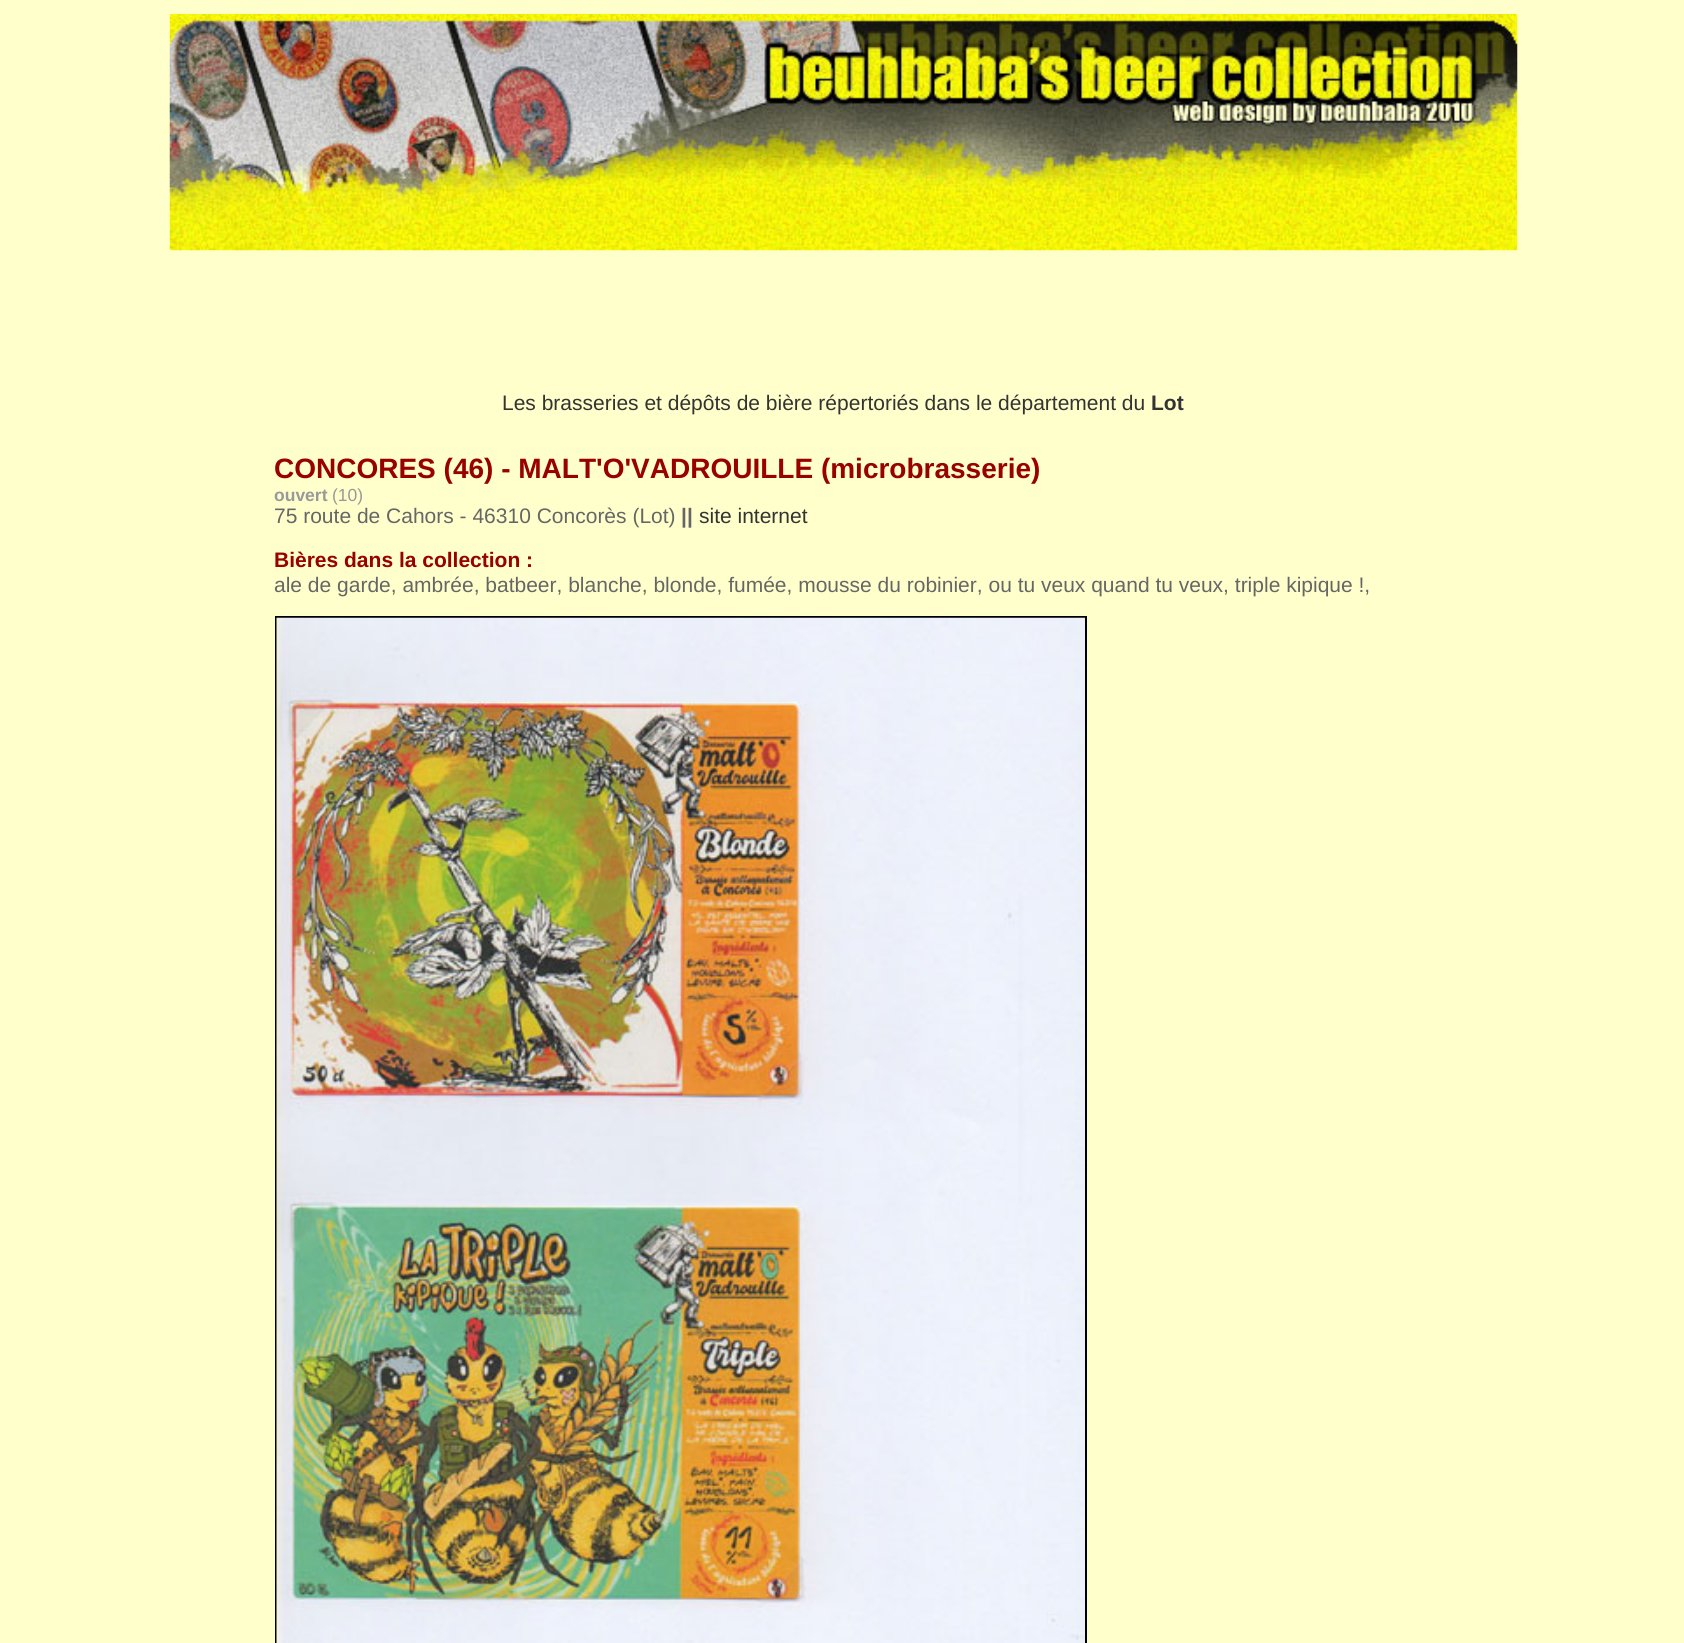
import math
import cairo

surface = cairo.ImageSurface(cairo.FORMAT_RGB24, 1684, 1643)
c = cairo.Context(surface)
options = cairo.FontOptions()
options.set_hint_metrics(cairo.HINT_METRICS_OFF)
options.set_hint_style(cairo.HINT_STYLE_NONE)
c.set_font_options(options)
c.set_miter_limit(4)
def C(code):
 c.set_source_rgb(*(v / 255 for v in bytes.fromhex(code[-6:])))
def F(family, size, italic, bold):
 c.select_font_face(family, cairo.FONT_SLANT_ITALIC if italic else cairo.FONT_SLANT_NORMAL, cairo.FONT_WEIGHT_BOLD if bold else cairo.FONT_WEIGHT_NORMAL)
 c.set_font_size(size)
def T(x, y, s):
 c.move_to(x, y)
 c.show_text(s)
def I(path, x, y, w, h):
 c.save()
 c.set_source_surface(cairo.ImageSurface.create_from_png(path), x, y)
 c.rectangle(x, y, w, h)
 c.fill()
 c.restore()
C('ffffcc')
c.paint()
I('1.png',169,14,1349,237)
F('Liberation Sans',21,0,0)
C('333333')
T(502,410,'Les brasseries et dépôts de bière répertoriés dans le département du')
F('Liberation Sans',21,0,1)
T(1151,410,'Lot')
F('Liberation Sans',28,0,1)
C('990000')
T(274,478,'CONCORES (46) - MALT\'O\'VADROUILLE (microbrasserie)')
F('Liberation Sans',17.5,0,1)
C('999999')
T(274,501,'ouvert')
F('Liberation Sans',17.5,0,0)
T(332,501,'(10)')
F('Liberation Sans',21,0,0)
C('666666')
T(274,523,'75 route de Cahors - 46310 Concorès (Lot)')
F('Liberation Sans',21,0,1)
T(681,523,'||')
F('Liberation Sans',21,0,0)
C('333333')
T(699,523,'site internet')
F('Liberation Sans',21,0,1)
C('990000')
T(274,567,'Bières dans la collection :')
F('Liberation Sans',21,0,0)
C('666666')
T(274,592,'ale de garde, ambrée, batbeer, blanche, blonde, fumée, mousse du robinier, ou tu veux quand tu veux, triple kipique !,')
c.rectangle(276,617,810,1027)
C('000000')
c.stroke()
I('2.png',276,617,809,1026)
surface.write_to_png('o.png')
